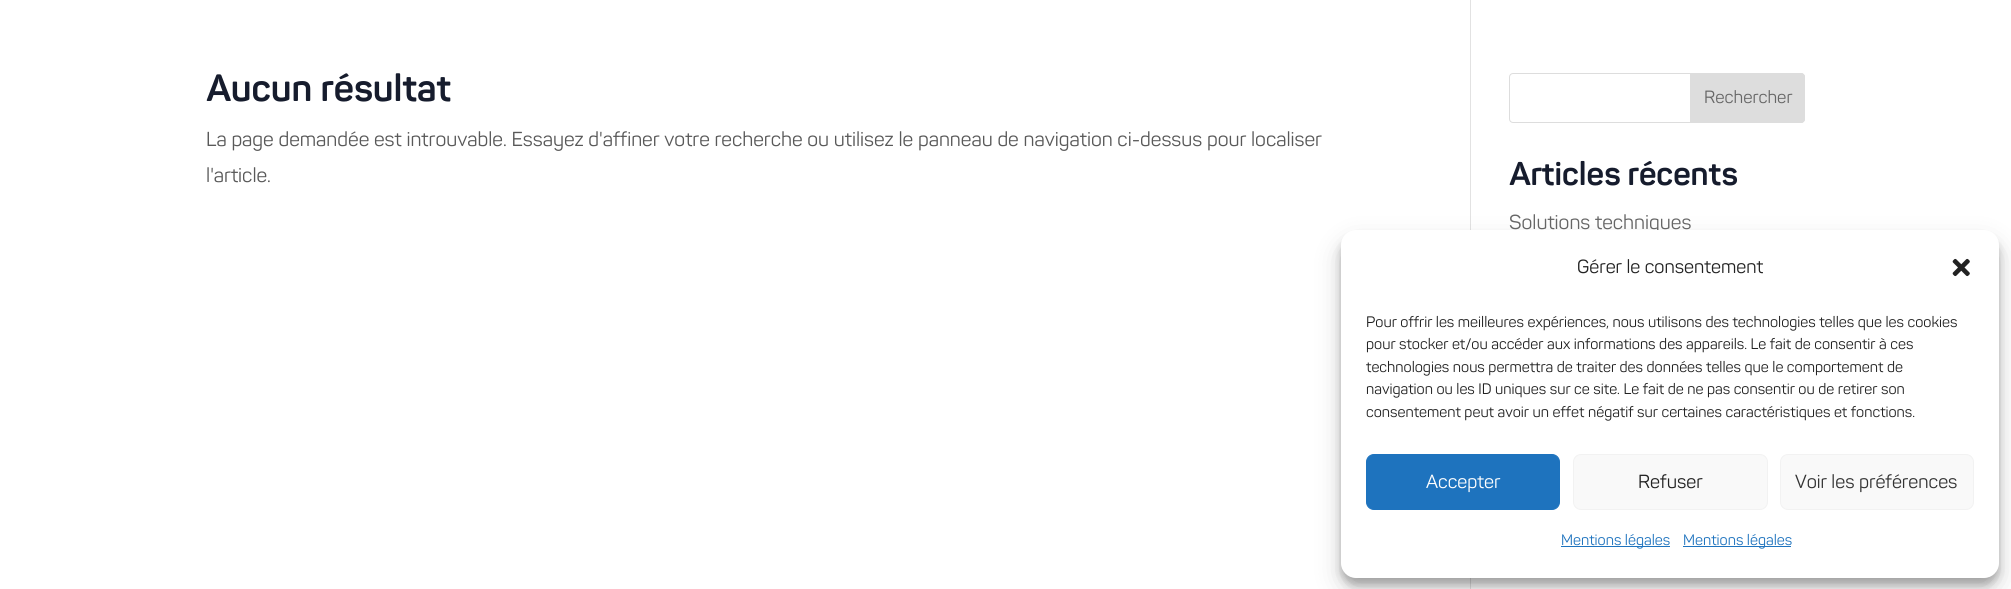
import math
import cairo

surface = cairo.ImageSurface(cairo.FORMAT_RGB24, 2011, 589)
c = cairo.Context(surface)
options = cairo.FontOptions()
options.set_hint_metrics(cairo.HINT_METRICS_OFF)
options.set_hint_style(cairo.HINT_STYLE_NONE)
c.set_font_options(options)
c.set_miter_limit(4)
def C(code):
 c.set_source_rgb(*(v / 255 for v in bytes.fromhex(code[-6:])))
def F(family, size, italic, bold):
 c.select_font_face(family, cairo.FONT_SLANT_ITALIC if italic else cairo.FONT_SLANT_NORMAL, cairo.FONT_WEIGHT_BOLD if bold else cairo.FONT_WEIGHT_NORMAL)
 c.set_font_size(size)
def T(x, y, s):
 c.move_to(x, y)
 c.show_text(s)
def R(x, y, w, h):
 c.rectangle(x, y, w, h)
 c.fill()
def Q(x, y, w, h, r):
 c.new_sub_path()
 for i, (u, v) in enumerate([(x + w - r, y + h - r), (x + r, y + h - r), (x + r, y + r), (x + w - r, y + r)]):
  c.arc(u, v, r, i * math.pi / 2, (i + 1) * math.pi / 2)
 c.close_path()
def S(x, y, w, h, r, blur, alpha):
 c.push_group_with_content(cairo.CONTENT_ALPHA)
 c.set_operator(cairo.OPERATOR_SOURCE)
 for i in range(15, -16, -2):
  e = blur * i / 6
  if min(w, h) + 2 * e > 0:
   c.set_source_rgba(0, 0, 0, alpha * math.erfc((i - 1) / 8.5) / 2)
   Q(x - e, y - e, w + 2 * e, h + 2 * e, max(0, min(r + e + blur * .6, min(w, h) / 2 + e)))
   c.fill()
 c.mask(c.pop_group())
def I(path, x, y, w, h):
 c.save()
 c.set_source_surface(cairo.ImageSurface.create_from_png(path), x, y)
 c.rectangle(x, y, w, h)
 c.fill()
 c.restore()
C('ffffff')
c.paint()
C('e2e2e2')
R(1470,0,1,589)
F('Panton',37.5,0,1)
C('161c2d')
T(206,101,'Aucun résultat')
F('Panton',20,0,0)
C('595959')
T(206,146,'La page demandée est introuvable. Essayez d\'affiner votre recherche ou utilisez le panneau de navigation ci-dessus pour localiser')
T(206,182,'l\'article.')
Q(1509.5,73.5,295,49,3.5)
C('dddddd')
c.set_line_width(1)
c.stroke()
c.new_path()
c.move_to(1690.5,73.5)
c.line_to(1801,73.5)
c.curve_to(1803,73.5,1804.5,75,1804.5,77)
c.line_to(1804.5,119)
c.curve_to(1804.5,121,1803,122.5,1801,122.5)
c.line_to(1690.5,122.5)
c.close_path()
c.fill_preserve()
c.stroke()
F('Panton',17.5,0,0)
C('666666')
T(1704,103,'Rechercher')
F('Panton',32.5,0,1)
C('161c2d')
T(1509,185,'Articles récents')
F('Panton',20,0,0)
C('666666')
T(1509,229,'Solutions techniques')
C('000000')
S(1341,238,658,347,15,4,.23)
S(1341,243,658,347,15,12.5,.19)
C('ffffff')
Q(1341,230,658,348,15)
c.fill()
F('Panton',18.75,0,0)
C('222222')
T(1577,273,'Gérer le consentement')
I('1.png',1952,258,18,19)
F('Panton',15,0,0)
T(1366,327,'Pour offrir les meilleures expériences, nous utilisons des technologies telles que les cookies')
T(1366,349,'pour stocker et/ou accéder aux informations des appareils. Le fait de consentir à ces')
T(1366,372,'technologies nous permettra de traiter des données telles que le comportement de')
T(1366,394,'navigation ou les ID uniques sur ce site. Le fait de ne pas consentir ou de retirer son')
T(1366,417,'consentement peut avoir un effet négatif sur certaines caractéristiques et fonctions.')
C('1e73be')
Q(1366.5,454.5,193,55,7.5)
c.fill_preserve()
c.stroke()
F('Panton',18.75,0,0)
C('ffffff')
T(1426,488,'Accepter')
C('f9f9f9')
Q(1573.5,454.5,194,55,7.5)
c.fill_preserve()
C('f2f2f2')
c.stroke()
C('222222')
T(1638,488,'Refuser')
C('f9f9f9')
Q(1780.5,454.5,193,55,7.5)
c.fill_preserve()
C('f2f2f2')
c.stroke()
C('333333')
T(1795,488,'Voir les préférences')
C('1e73be')
R(1561,546,109,1)
F('Panton',15,0,0)
T(1561,545,'Mentions légales')
R(1683,546,108,1)
T(1683,545,'Mentions légales')
surface.write_to_png('o.png')
